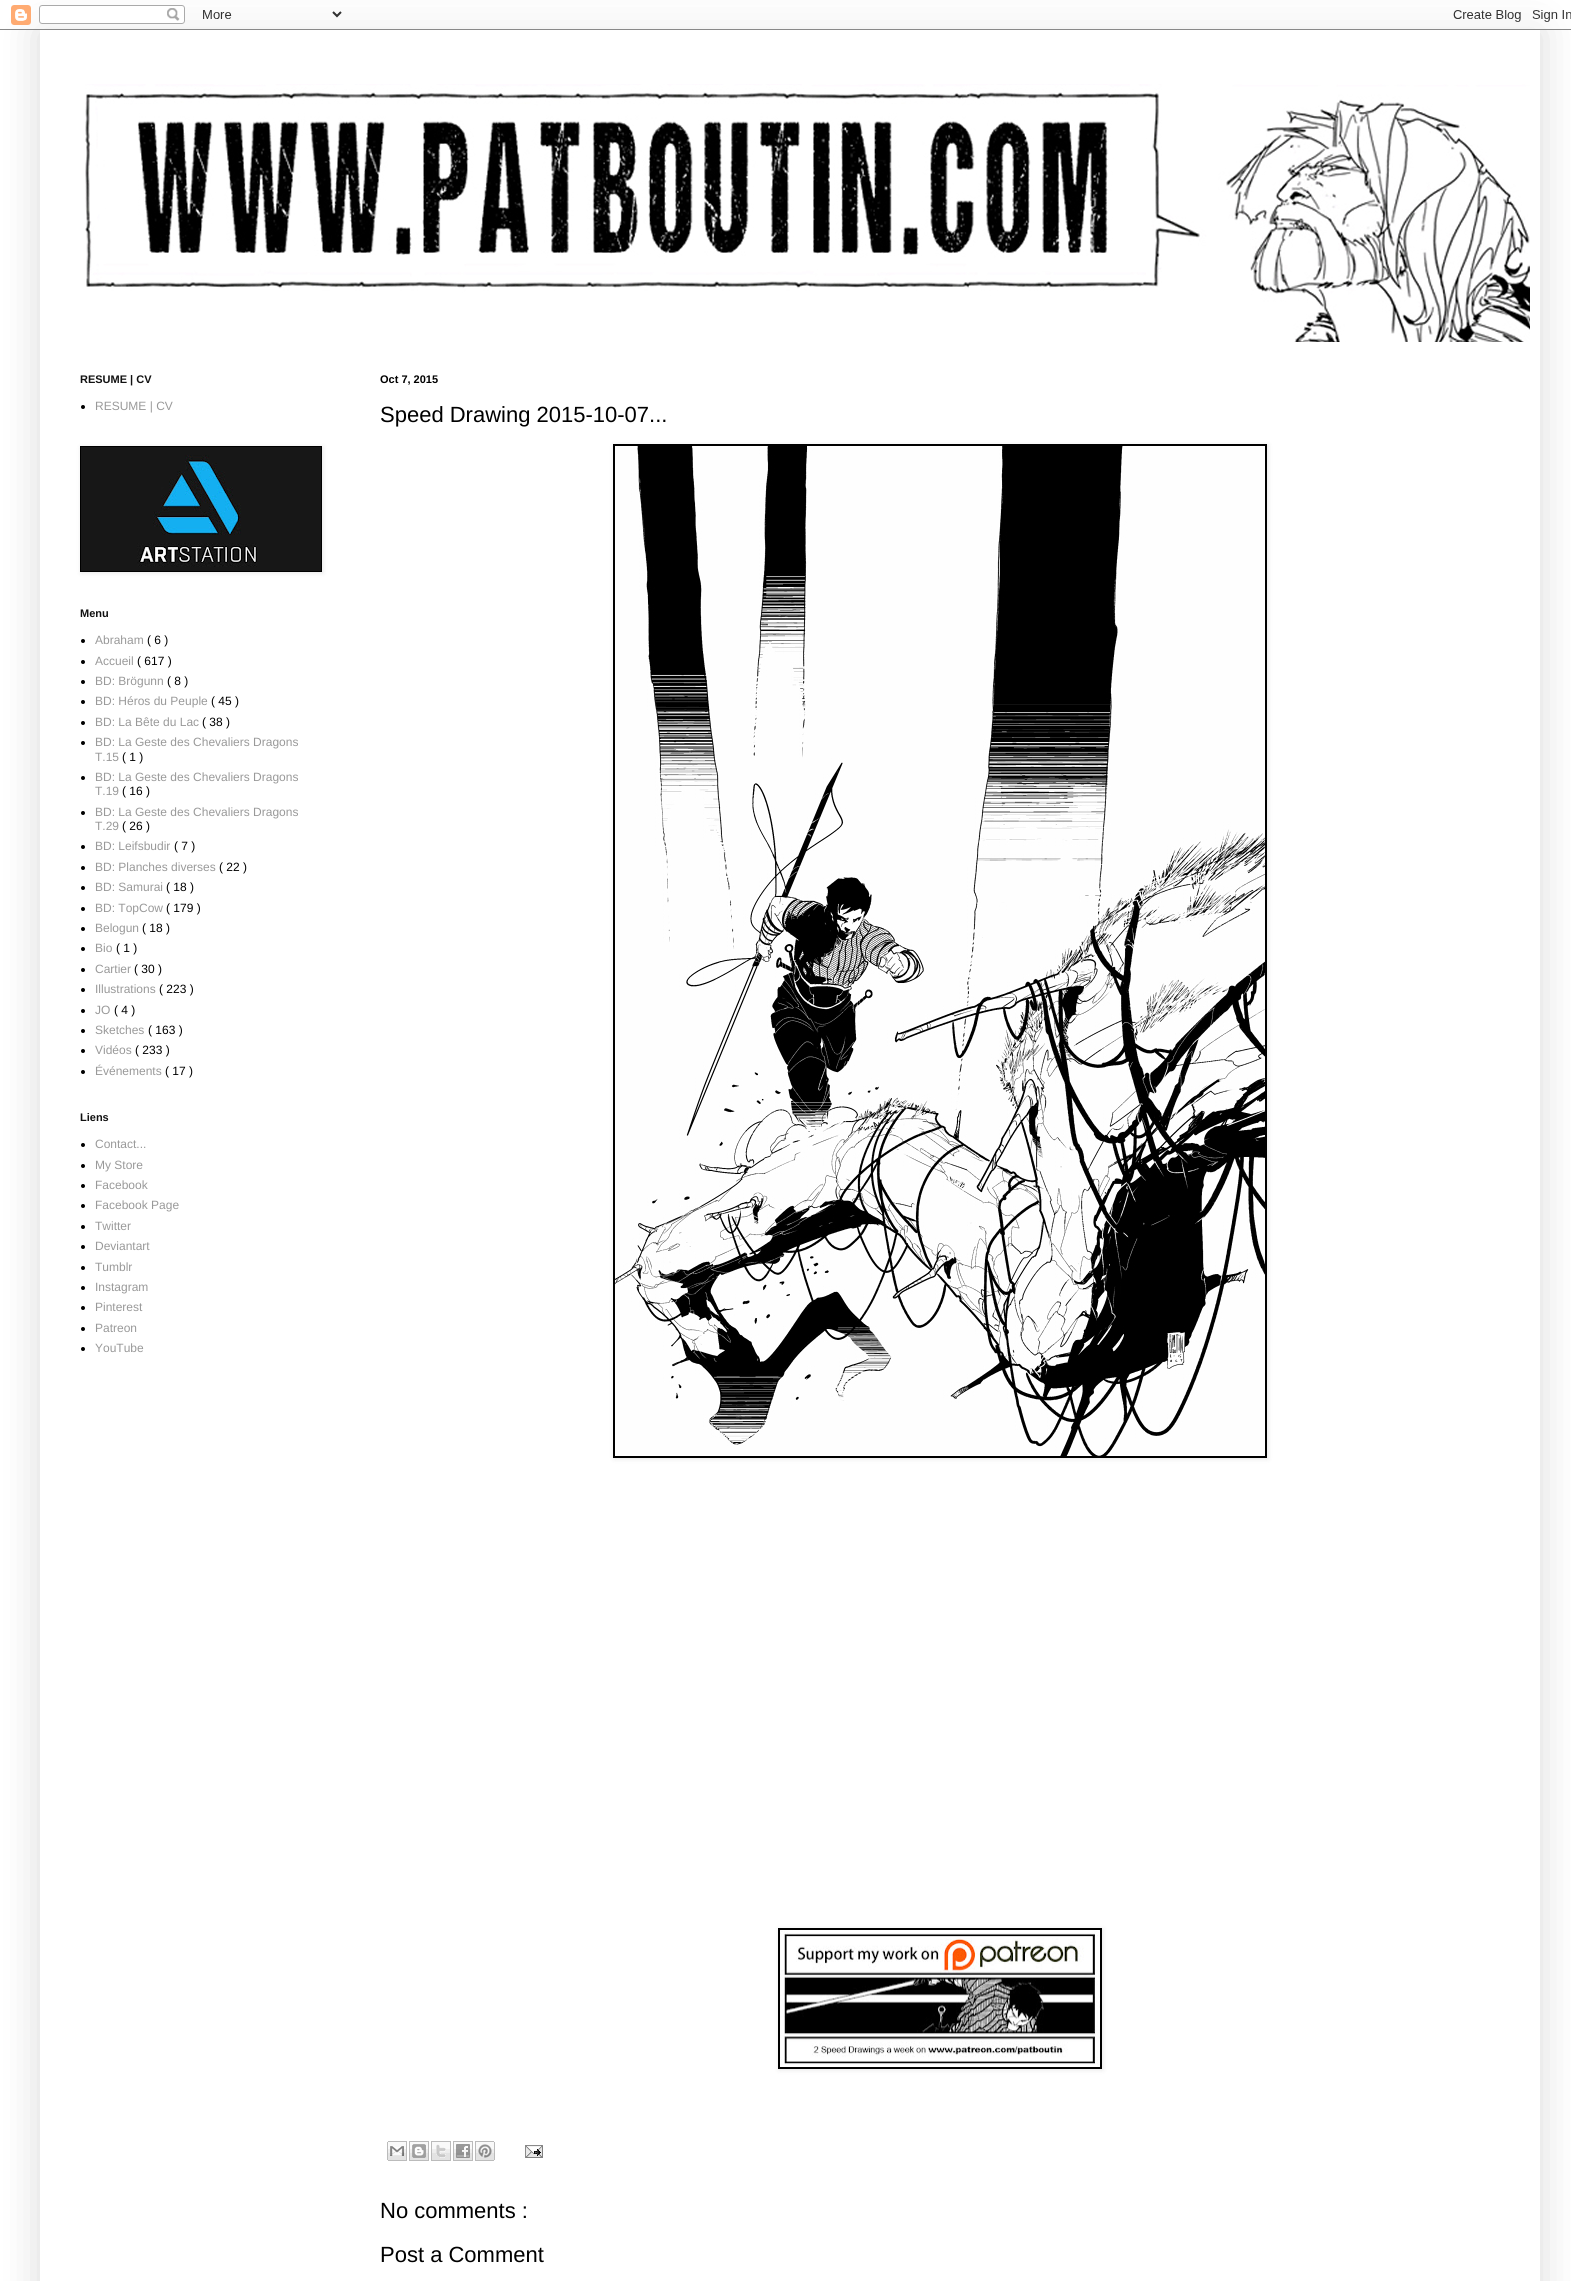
import math
import cairo

surface = cairo.ImageSurface(cairo.FORMAT_RGB24, 1571, 2281)
c = cairo.Context(surface)
options = cairo.FontOptions()
options.set_hint_metrics(cairo.HINT_METRICS_OFF)
options.set_hint_style(cairo.HINT_STYLE_NONE)
c.set_font_options(options)
c.set_miter_limit(4)
def C(code):
 c.set_source_rgb(*(v / 255 for v in bytes.fromhex(code[-6:])))
def F(family, size, italic, bold):
 c.select_font_face(family, cairo.FONT_SLANT_ITALIC if italic else cairo.FONT_SLANT_NORMAL, cairo.FONT_WEIGHT_BOLD if bold else cairo.FONT_WEIGHT_NORMAL)
 c.set_font_size(size)
def T(x, y, s):
 c.move_to(x, y)
 c.show_text(s)
def R(x, y, w, h):
 c.rectangle(x, y, w, h)
 c.fill()
def Q(x, y, w, h, r):
 c.new_sub_path()
 for i, (u, v) in enumerate([(x + w - r, y + h - r), (x + r, y + h - r), (x + r, y + r), (x + w - r, y + r)]):
  c.arc(u, v, r, i * math.pi / 2, (i + 1) * math.pi / 2)
 c.close_path()
def S(x, y, w, h, r, blur, alpha):
 c.push_group_with_content(cairo.CONTENT_ALPHA)
 c.set_operator(cairo.OPERATOR_SOURCE)
 for i in range(15, -16, -2):
  e = blur * i / 6
  if min(w, h) + 2 * e > 0:
   c.set_source_rgba(0, 0, 0, alpha * math.erfc((i - 1) / 8.5) / 2)
   Q(x - e, y - e, w + 2 * e, h + 2 * e, max(0, min(r + e + blur * .6, min(w, h) / 2 + e)))
   c.fill()
 c.mask(c.pop_group())
def I(path, x, y, w, h):
 c.save()
 c.set_source_surface(cairo.ImageSurface.create_from_png(path), x, y)
 c.rectangle(x, y, w, h)
 c.fill()
 c.restore()
C('ffffff')
c.paint()
c.save()
c.set_fill_rule(cairo.FILL_RULE_EVEN_ODD)
c.new_path()
c.move_to(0,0)
c.line_to(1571,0)
c.line_to(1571,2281)
c.line_to(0,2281)
c.close_path()
c.move_to(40,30)
c.line_to(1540,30)
c.line_to(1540,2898)
c.line_to(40,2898)
c.close_path()
c.clip()
C('000000')
S(40,30,1500,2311,0,20,.15)
c.restore()
I('1.png',0,5,1571,25)
I('2.png',85,84,1445,258)
F('Liberation Sans',11,0,1)
C('111111')
T(80,383,'RESUME | CV')
C('000000')
c.new_path()
c.arc(83,407,2,0,2 * math.pi)
c.fill()
F('Liberation Sans',12,0,0)
C('999999')
T(95,410,'RESUME | CV')
C('000000')
S(81,447,242,126,0,2.5,.1)
C('000000')
R(80,446,242,126)
I('3.png',81,447,240,124)
F('Liberation Sans',11,0,1)
C('111111')
T(80,617,'Menu')
C('000000')
c.new_path()
c.arc(83,641,2,0,2 * math.pi)
c.fill()
F('Liberation Sans',12,0,0)
C('999999')
T(95,644,'Abraham')
C('000000')
T(147,644,'( 6 )')
c.new_path()
c.arc(83,662,2,0,2 * math.pi)
c.fill()
C('999999')
T(95,665,'Accueil')
C('000000')
T(137,665,'( 617 )')
c.new_path()
c.arc(83,682,2,0,2 * math.pi)
c.fill()
C('999999')
T(95,685,'BD: Brögunn')
C('000000')
T(167,685,'( 8 )')
c.new_path()
c.arc(83,702,2,0,2 * math.pi)
c.fill()
C('999999')
T(95,705,'BD: Héros du Peuple')
C('000000')
T(211,705,'( 45 )')
c.new_path()
c.arc(83,723,2,0,2 * math.pi)
c.fill()
C('999999')
T(95,726,'BD: La Bête du Lac')
C('000000')
T(202,726,'( 38 )')
c.new_path()
c.arc(83,743,2,0,2 * math.pi)
c.fill()
C('999999')
T(95,746,'BD: La Geste des Chevaliers Dragons')
T(95,761,'T.15')
C('000000')
T(122,761,'( 1 )')
c.new_path()
c.arc(83,778,2,0,2 * math.pi)
c.fill()
C('999999')
T(95,781,'BD: La Geste des Chevaliers Dragons')
T(95,795,'T.19')
C('000000')
T(122,795,'( 16 )')
c.new_path()
c.arc(83,813,2,0,2 * math.pi)
c.fill()
C('999999')
T(95,816,'BD: La Geste des Chevaliers Dragons')
T(95,830,'T.29')
C('000000')
T(122,830,'( 26 )')
c.new_path()
c.arc(83,847,2,0,2 * math.pi)
c.fill()
C('999999')
T(95,850,'BD: Leifsbudir')
C('000000')
T(174,850,'( 7 )')
c.new_path()
c.arc(83,868,2,0,2 * math.pi)
c.fill()
C('999999')
T(95,871,'BD: Planches diverses')
C('000000')
T(219,871,'( 22 )')
c.new_path()
c.arc(83,888,2,0,2 * math.pi)
c.fill()
C('999999')
T(95,891,'BD: Samurai')
C('000000')
T(166,891,'( 18 )')
c.new_path()
c.arc(83,909,2,0,2 * math.pi)
c.fill()
C('999999')
T(95,912,'BD: TopCow')
C('000000')
T(166,912,'( 179 )')
c.new_path()
c.arc(83,929,2,0,2 * math.pi)
c.fill()
C('999999')
T(95,932,'Belogun')
C('000000')
T(142,932,'( 18 )')
c.new_path()
c.arc(83,949,2,0,2 * math.pi)
c.fill()
C('999999')
T(95,952,'Bio')
C('000000')
T(116,952,'( 1 )')
c.new_path()
c.arc(83,970,2,0,2 * math.pi)
c.fill()
C('999999')
T(95,973,'Cartier')
C('000000')
T(134,973,'( 30 )')
c.new_path()
c.arc(83,990,2,0,2 * math.pi)
c.fill()
C('999999')
T(95,993,'Illustrations')
C('000000')
T(159,993,'( 223 )')
c.new_path()
c.arc(83,1011,2,0,2 * math.pi)
c.fill()
C('999999')
T(95,1014,'JO')
C('000000')
T(114,1014,'( 4 )')
c.new_path()
c.arc(83,1031,2,0,2 * math.pi)
c.fill()
C('999999')
T(95,1034,'Sketches')
C('000000')
T(148,1034,'( 163 )')
c.new_path()
c.arc(83,1051,2,0,2 * math.pi)
c.fill()
C('999999')
T(95,1054,'Vidéos')
C('000000')
T(135,1054,'( 233 )')
c.new_path()
c.arc(83,1072,2,0,2 * math.pi)
c.fill()
C('999999')
T(95,1075,'Événements')
C('000000')
T(165,1075,'( 17 )')
F('Liberation Sans',11,0,1)
C('111111')
T(80,1121,'Liens')
C('000000')
c.new_path()
c.arc(83,1145,2,0,2 * math.pi)
c.fill()
F('Liberation Sans',12,0,0)
C('999999')
T(95,1148,'Contact...')
C('000000')
c.new_path()
c.arc(83,1166,2,0,2 * math.pi)
c.fill()
C('999999')
T(95,1169,'My Store')
C('000000')
c.new_path()
c.arc(83,1186,2,0,2 * math.pi)
c.fill()
C('999999')
T(95,1189,'Facebook')
C('000000')
c.new_path()
c.arc(83,1206,2,0,2 * math.pi)
c.fill()
C('999999')
T(95,1209,'Facebook Page')
C('000000')
c.new_path()
c.arc(83,1227,2,0,2 * math.pi)
c.fill()
C('999999')
T(95,1230,'Twitter')
C('000000')
c.new_path()
c.arc(83,1247,2,0,2 * math.pi)
c.fill()
C('999999')
T(95,1250,'Deviantart')
C('000000')
c.new_path()
c.arc(83,1268,2,0,2 * math.pi)
c.fill()
C('999999')
T(95,1271,'Tumblr')
C('000000')
c.new_path()
c.arc(83,1288,2,0,2 * math.pi)
c.fill()
C('999999')
T(95,1291,'Instagram')
C('000000')
c.new_path()
c.arc(83,1308,2,0,2 * math.pi)
c.fill()
C('999999')
T(95,1311,'Pinterest')
C('000000')
c.new_path()
c.arc(83,1329,2,0,2 * math.pi)
c.fill()
C('999999')
T(95,1332,'Patreon')
C('000000')
c.new_path()
c.arc(83,1349,2,0,2 * math.pi)
c.fill()
C('999999')
T(95,1352,'YouTube')
F('Liberation Sans',11,0,1)
C('000000')
T(380,383,'Oct 7, 2015')
F('Liberation Sans',22,0,0)
T(380,422,'Speed Drawing 2015-10-07...')
C('000000')
S(614,445,654,1014,0,2.5,.1)
C('000000')
R(613,444,654,1014)
I('4.png',615,446,650,1010)
C('000000')
S(779,1929,324,141,0,2.5,.1)
C('000000')
R(778,1928,324,141)
I('5.png',780,1930,320,137)
I('6.png',387,2141,20,20)
I('7.png',409,2141,20,20)
I('8.png',431,2141,20,20)
I('9.png',453,2141,20,20)
I('10.png',475,2141,20,20)
I('11.png',525,2145,18,13)
T(380,2218,'No comments :')
T(380,2262,'Post a Comment')
surface.write_to_png('o.png')
